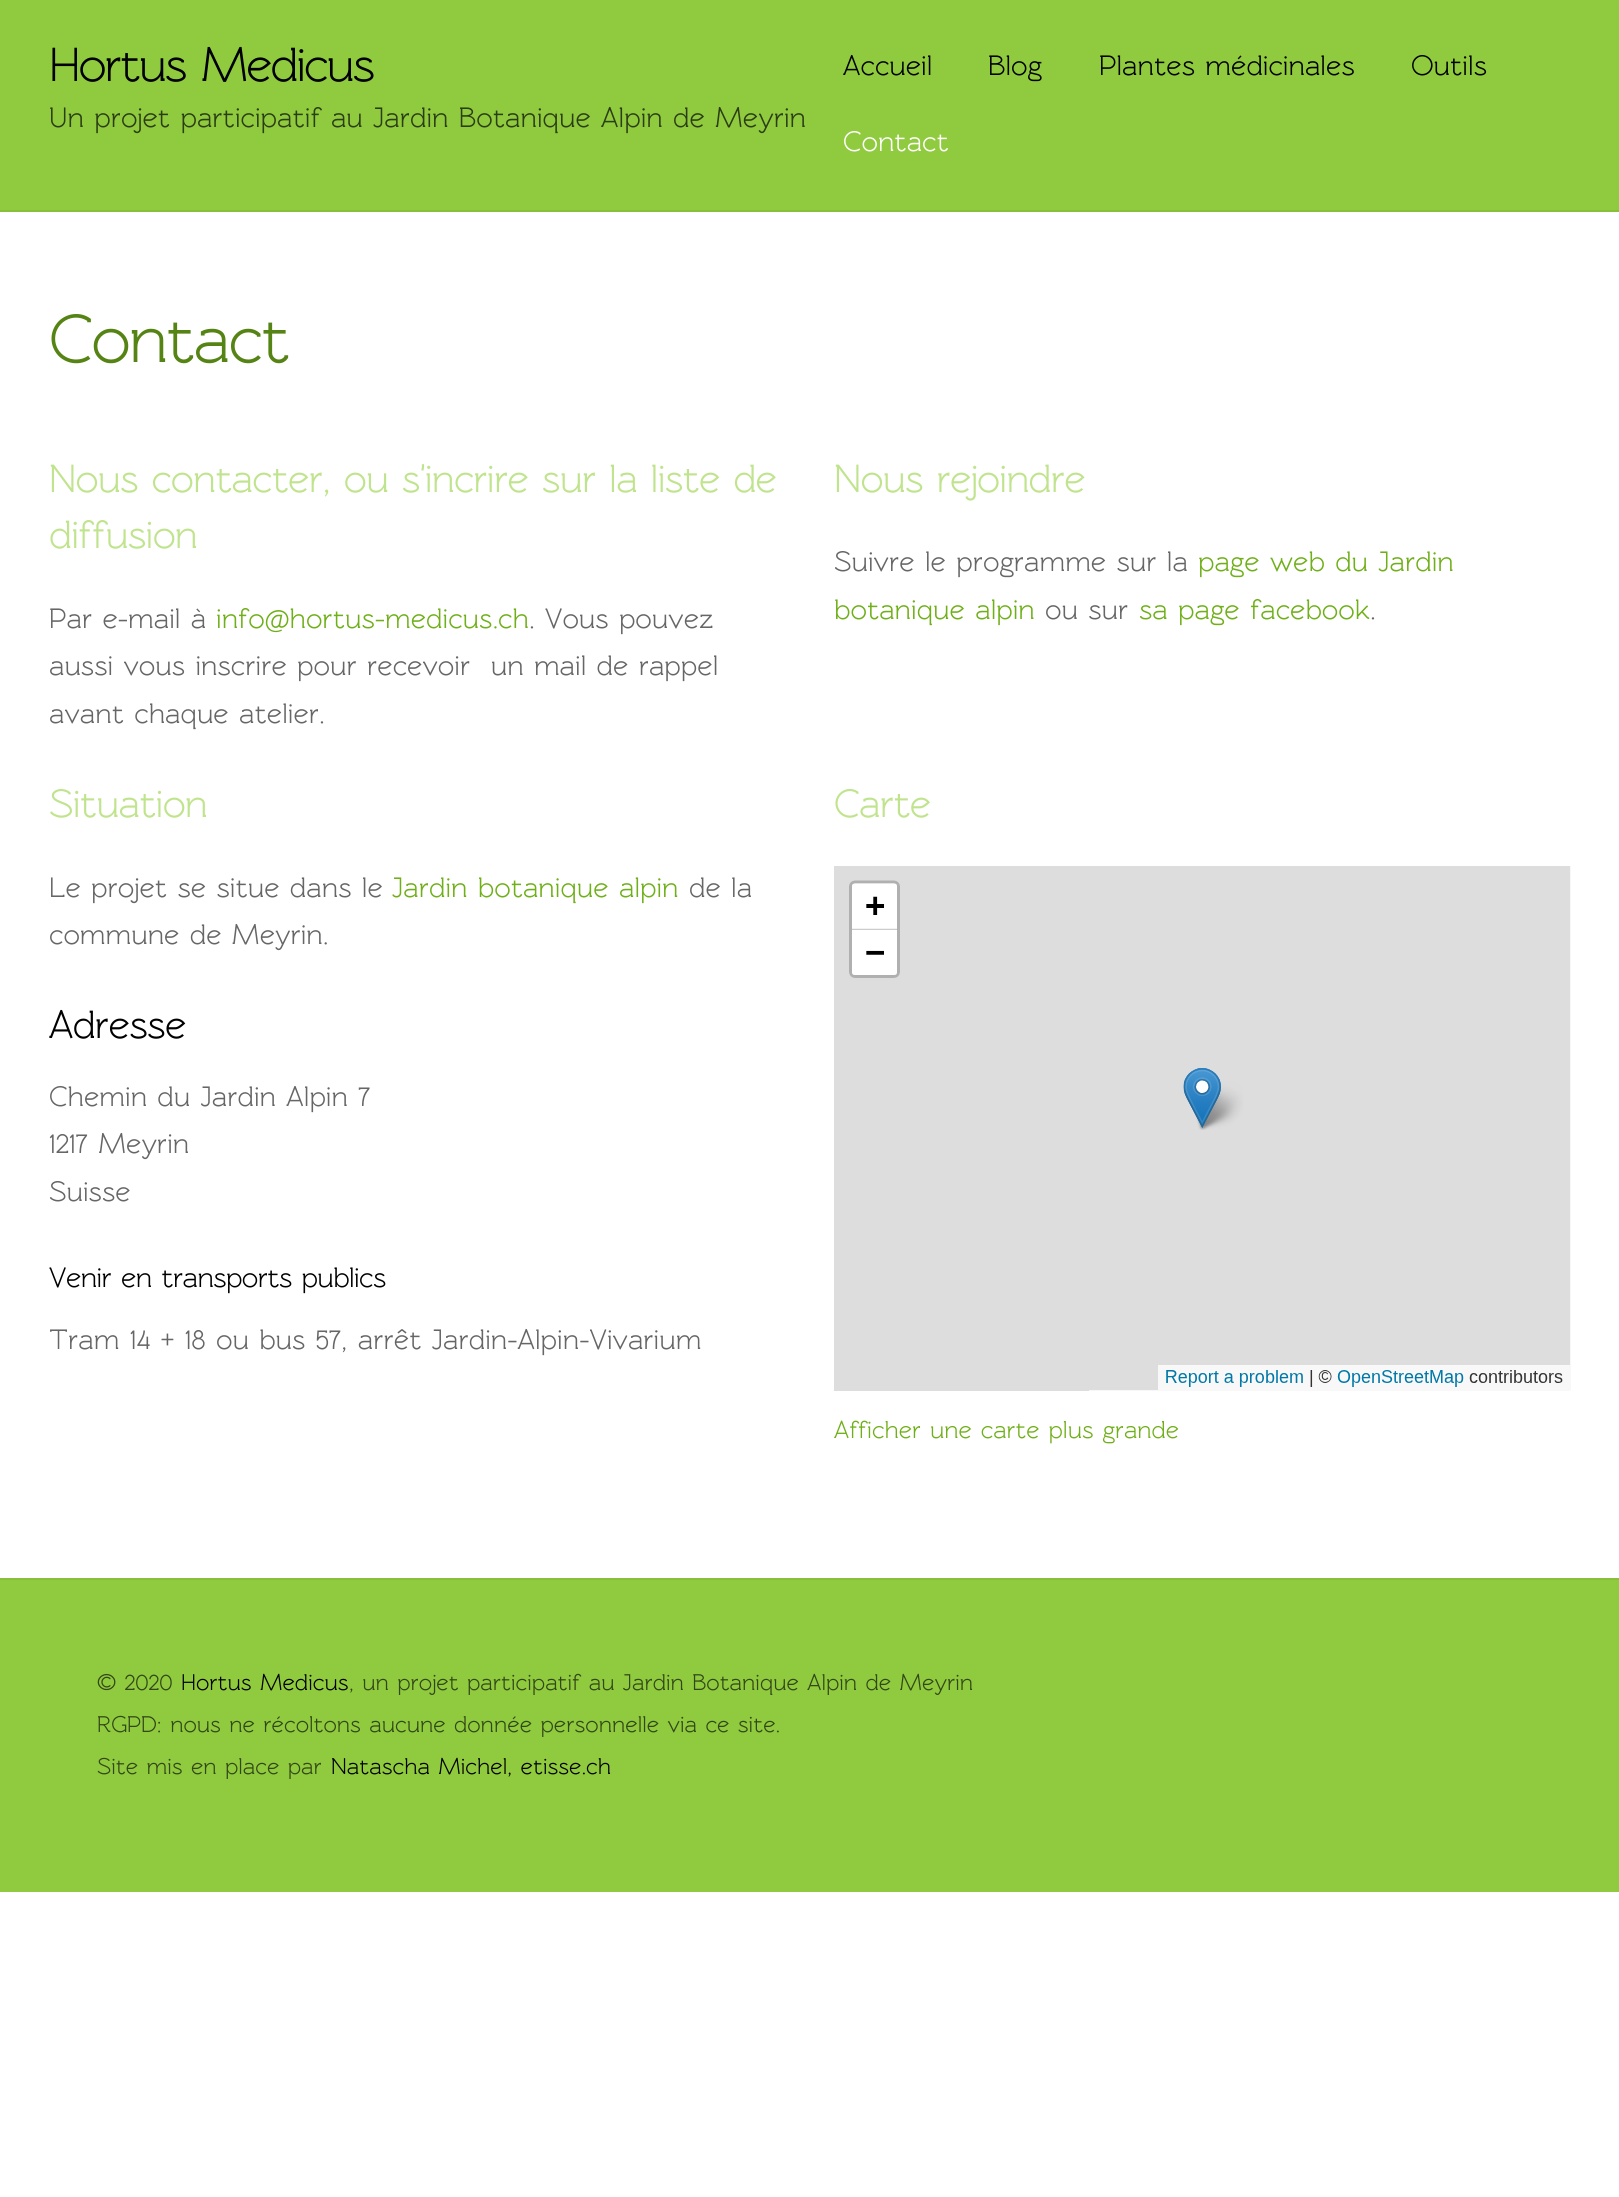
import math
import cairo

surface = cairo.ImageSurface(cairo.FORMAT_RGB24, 1619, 2197)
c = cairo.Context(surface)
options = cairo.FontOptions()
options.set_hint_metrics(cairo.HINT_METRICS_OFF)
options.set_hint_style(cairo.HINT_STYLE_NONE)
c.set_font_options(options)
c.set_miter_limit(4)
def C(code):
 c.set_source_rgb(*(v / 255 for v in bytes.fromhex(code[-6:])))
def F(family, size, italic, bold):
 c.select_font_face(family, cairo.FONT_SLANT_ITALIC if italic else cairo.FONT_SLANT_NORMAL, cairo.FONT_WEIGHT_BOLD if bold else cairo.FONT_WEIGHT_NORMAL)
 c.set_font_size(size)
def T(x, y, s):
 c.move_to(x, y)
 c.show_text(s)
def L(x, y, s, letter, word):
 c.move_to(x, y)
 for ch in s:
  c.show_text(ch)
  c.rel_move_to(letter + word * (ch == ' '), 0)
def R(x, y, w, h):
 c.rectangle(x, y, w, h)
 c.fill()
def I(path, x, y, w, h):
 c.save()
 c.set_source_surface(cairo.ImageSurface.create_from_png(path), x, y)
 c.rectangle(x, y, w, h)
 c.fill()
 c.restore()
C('ffffff')
c.paint()
C('8fca3f')
R(0,0,1619,210)
C('88c03c')
R(0,210,1619,2)
F('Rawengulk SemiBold',49,0,0)
C('000000')
L(49,81,'Hortus Medicus',-2,0)
F('Rawengulk SemiBold',28.8,0,0)
C('2b3d13')
T(49,127,'Un projet participatif au Jardin Botanique Alpin de Meyrin')
C('000000')
T(843,75,'Accueil')
T(988,75,'Blog')
T(1099,75,'Plantes médicinales')
T(1411,75,'Outils')
C('ffffff')
T(843,151,'Contact')
F('Rawengulk SemiBold',69,0,0)
C('558314')
L(49,362,'Contact',-2,0)
F('Rawengulk SemiBold',40.3,0,0)
C('c0e48e')
L(49,492,'Nous contacter, ou s\'incrire sur la liste de',-.8,0)
L(49,548,'diffusion',-.8,0)
F('Rawengulk SemiBold',28.8,0,0)
C('666666')
T(49,628,'Par e-mail à')
C('6faf18')
T(216,628,'info@hortus-medicus.ch')
C('666666')
T(529,628,'. Vous pouvez')
T(49,675,'aussi vous inscrire pour recevoir  un mail de rappel')
T(49,723,'avant chaque atelier.')
F('Rawengulk SemiBold',40.3,0,0)
C('c0e48e')
L(834,492,'Nous rejoindre',-.8,0)
F('Rawengulk SemiBold',28.8,0,0)
C('666666')
T(834,571,'Suivre le programme sur la')
C('6faf18')
T(1198,571,'page web du Jardin')
T(834,619,'botanique alpin')
C('666666')
T(1045,619,'ou sur')
C('6faf18')
T(1139,619,'sa page facebook')
C('666666')
T(1370,619,'.')
F('Rawengulk SemiBold',40.3,0,0)
C('c0e48e')
L(49,817,'Situation',-.8,0)
F('Rawengulk SemiBold',28.8,0,0)
C('666666')
T(49,897,'Le projet se situe dans le')
C('6faf18')
T(392,897,'Jardin botanique alpin')
C('666666')
T(689,897,'de la')
T(49,944,'commune de Meyrin.')
F('Rawengulk SemiBold',40.3,0,0)
C('000000')
L(49,1038,'Adresse',-.8,0)
F('Rawengulk SemiBold',28.8,0,0)
C('666666')
T(49,1106,'Chemin du Jardin Alpin 7')
T(49,1153,'1217 Meyrin')
T(49,1201,'Suisse')
C('000000')
L(49,1287,'Venir en transports publics',-.6,0)
C('666666')
T(49,1349,'Tram 14 + 18 ou bus 57, arrêt Jardin-Alpin-Vivarium')
F('Rawengulk SemiBold',40.3,0,0)
C('c0e48e')
L(834,817,'Carte',-.8,0)
I('1.png',834,866,737,525)
F('Rawengulk SemiBold',25,0,0)
C('6faf18')
T(834,1438,'Afficher une carte plus grande')
C('8fca3f')
R(0,1580,1619,312)
C('88c03c')
R(0,1578,1619,2)
F('Rawengulk SemiBold',23.3,0,0)
C('324716')
T(97,1690,'© 2020')
C('000000')
T(181,1690,'Hortus Medicus')
C('324716')
T(349,1690,', un projet participatif au Jardin Botanique Alpin de Meyrin')
T(97,1732,'RGPD: nous ne récoltons aucune donnée personnelle via ce site.')
T(97,1774,'Site mis en place par')
C('000000')
T(331,1774,'Natascha Michel, etisse.ch')
surface.write_to_png('o.png')
